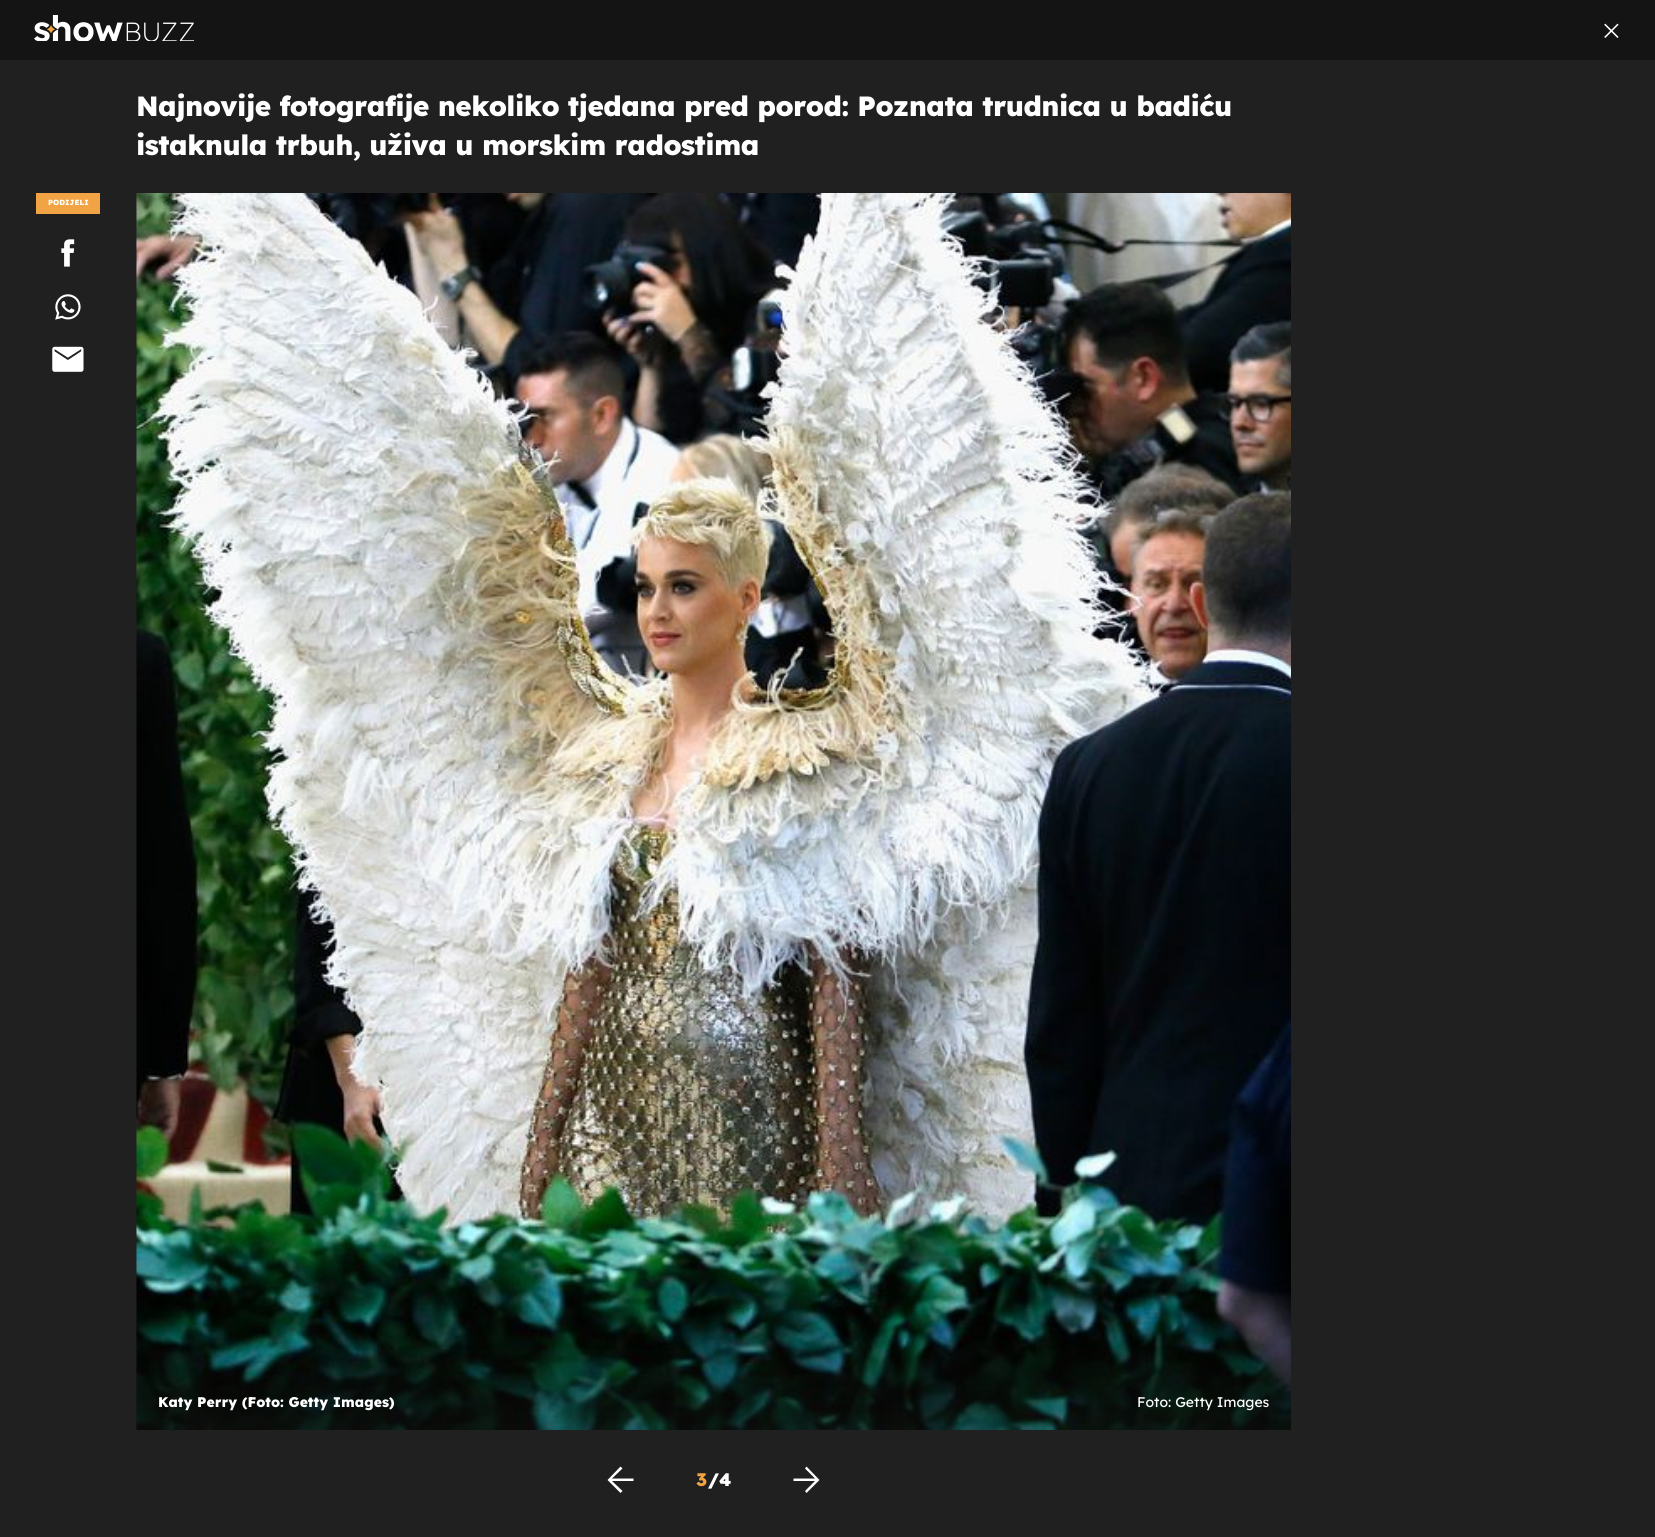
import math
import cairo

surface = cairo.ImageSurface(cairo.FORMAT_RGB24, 1655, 1537)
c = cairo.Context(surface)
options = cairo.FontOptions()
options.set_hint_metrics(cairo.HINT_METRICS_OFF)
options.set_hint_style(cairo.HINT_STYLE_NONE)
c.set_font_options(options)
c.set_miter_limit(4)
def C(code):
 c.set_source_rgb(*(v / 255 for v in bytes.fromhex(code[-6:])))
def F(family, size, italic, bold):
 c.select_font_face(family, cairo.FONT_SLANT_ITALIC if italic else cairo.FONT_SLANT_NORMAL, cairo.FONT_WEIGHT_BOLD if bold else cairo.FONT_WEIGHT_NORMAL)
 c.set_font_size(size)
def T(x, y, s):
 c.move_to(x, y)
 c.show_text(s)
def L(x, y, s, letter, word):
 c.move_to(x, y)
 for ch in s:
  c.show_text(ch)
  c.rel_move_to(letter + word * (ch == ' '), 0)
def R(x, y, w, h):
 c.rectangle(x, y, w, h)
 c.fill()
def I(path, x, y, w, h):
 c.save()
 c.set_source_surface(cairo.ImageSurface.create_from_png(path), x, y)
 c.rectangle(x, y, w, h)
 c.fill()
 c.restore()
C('202020')
c.paint()
C('141414')
R(0,0,1655,60)
I('1.png',34,15,160,26)
I('2.png',1604,23,15,15)
F('Lexend ExtraBold',27.85,0,0)
C('ffffff')
L(136,116,'Najnovije fotografije nekoliko tjedana pred porod: Poznata trudnica u badiću',-.55,0)
L(136,155,'istaknula trbuh, uživa u morskim radostima',-.55,0)
C('f2a444')
R(36,193,64,21)
F('Lexend ExtraBold',7.5,0,0)
C('ffffff')
T(48,205,'PODIJELI')
I('3.png',61,239,14,28)
I('4.png',55,294,26,26)
I('5.png',52,346,32,26)
I('6.png',136,193,1155,1237)
gradient = cairo.LinearGradient(714,1430,714,1332)
gradient.add_color_stop_rgba(0,0.078,0.078,0.078,.4)
gradient.add_color_stop_rgba(1,0.078,0.078,0.078,0)
c.set_source(gradient)
R(136,1337,1155,93)
F('Lexend ExtraBold',14,0,0)
C('ffffff')
T(158,1407,'Katy Perry (Foto: Getty Images)')
F('Lexend',14,0,0)
T(1137,1407,'Foto: Getty Images')
c.new_path()
c.move_to(620.5,1493)
c.line_to(622.5,1491)
c.line_to(612,1481)
c.line_to(633.5,1481)
c.line_to(633.5,1478.5)
c.line_to(612,1478.5)
c.line_to(622.5,1468.5)
c.line_to(620.5,1466.5)
c.line_to(607.5,1480)
c.close_path()
c.fill()
F('Lexend ExtraBold',18,0,0)
C('f2a444')
T(696,1486,'3')
C('ffffff')
T(708,1486,'/4')
c.new_path()
c.move_to(806.5,1493)
c.line_to(805,1491)
c.line_to(815,1481)
c.line_to(793.5,1481)
c.line_to(793.5,1478.5)
c.line_to(815,1478.5)
c.line_to(805,1468.5)
c.line_to(806.5,1466.5)
c.line_to(819.5,1480)
c.close_path()
c.fill()
surface.write_to_png('o.png')
